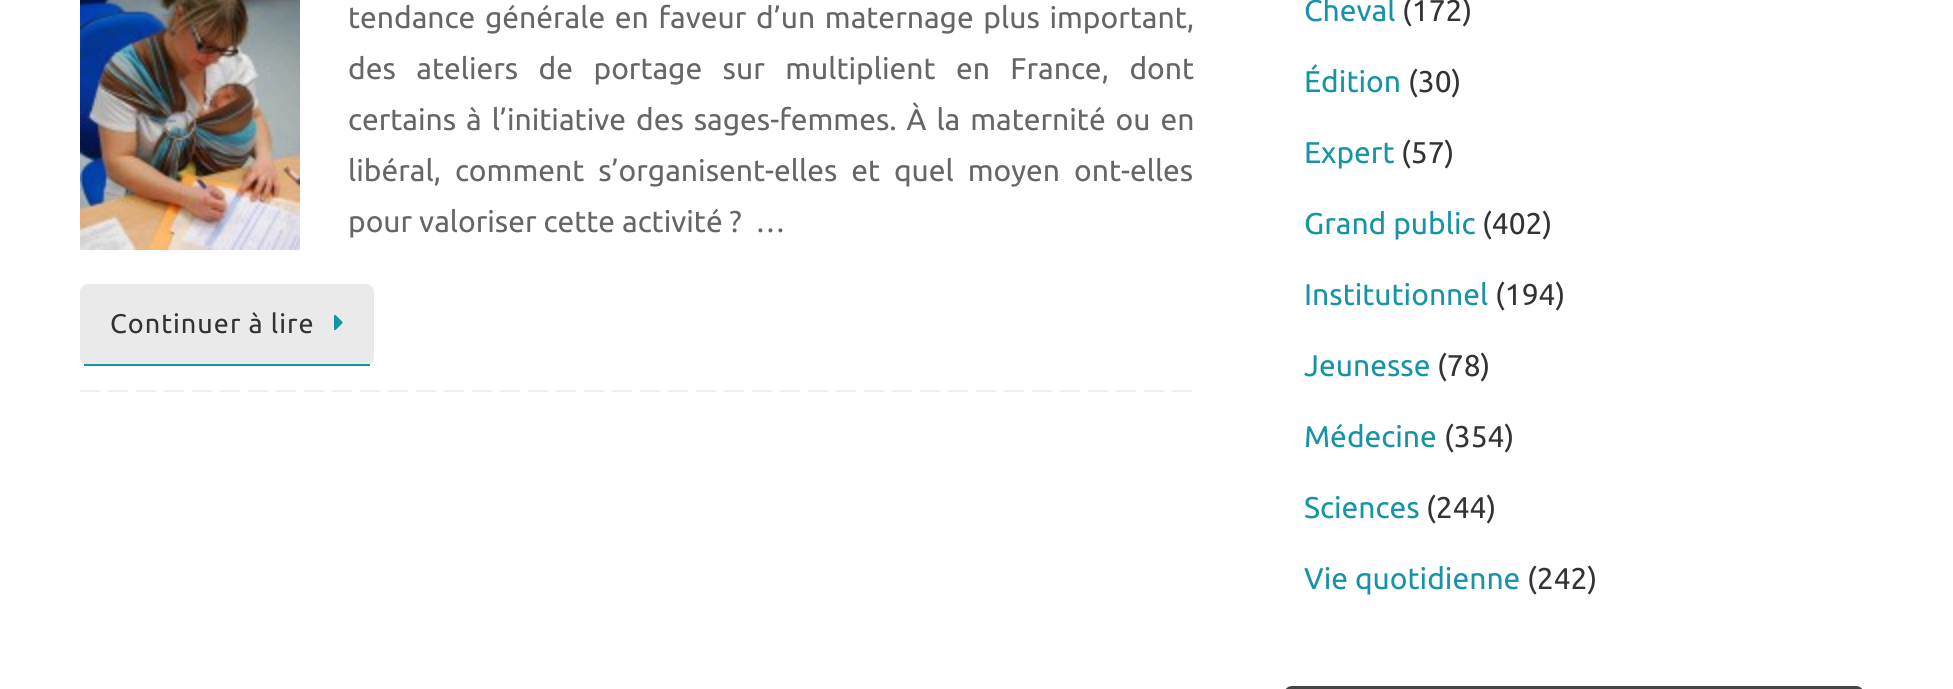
import math
import cairo

surface = cairo.ImageSurface(cairo.FORMAT_RGB24, 1953, 689)
c = cairo.Context(surface)
options = cairo.FontOptions()
options.set_hint_metrics(cairo.HINT_METRICS_OFF)
options.set_hint_style(cairo.HINT_STYLE_NONE)
c.set_font_options(options)
c.set_miter_limit(4)
def C(code):
 c.set_source_rgb(*(v / 255 for v in bytes.fromhex(code[-6:])))
def F(family, size, italic, bold):
 c.select_font_face(family, cairo.FONT_SLANT_ITALIC if italic else cairo.FONT_SLANT_NORMAL, cairo.FONT_WEIGHT_BOLD if bold else cairo.FONT_WEIGHT_NORMAL)
 c.set_font_size(size)
def T(x, y, s):
 c.move_to(x, y)
 c.show_text(s)
def L(x, y, s, letter, word):
 c.move_to(x, y)
 for ch in s:
  c.show_text(ch)
  c.rel_move_to(letter + word * (ch == ' '), 0)
def R(x, y, w, h):
 c.rectangle(x, y, w, h)
 c.fill()
def Q(x, y, w, h, r):
 c.new_sub_path()
 for i, (u, v) in enumerate([(x + w - r, y + h - r), (x + r, y + h - r), (x + r, y + r), (x + w - r, y + r)]):
  c.arc(u, v, r, i * math.pi / 2, (i + 1) * math.pi / 2)
 c.close_path()
def I(path, x, y, w, h):
 c.save()
 c.set_source_surface(cairo.ImageSurface.create_from_png(path), x, y)
 c.rectangle(x, y, w, h)
 c.fill()
 c.restore()
C('ffffff')
c.paint()
I('1.png',80,0,220,250)
F('Ubuntu',30,0,0)
C('666666')
L(348,28,'tendance générale en faveur d’un maternage plus important,',0,2.75)
L(348,79,'des ateliers de portage sur multiplient en France, dont',0,13.5)
L(348,130,'certains à l’initiative des sages-femmes. À la maternité ou en',0,3)
L(348,181,'libéral, comment s’organisent-elles et quel moyen ont-elles',0,7)
T(348,232,'pour valoriser cette activité ?  …')
C('eaeaea')
Q(80,284,294,82,8)
c.fill()
C('1693a5')
R(84,364,286,2)
F('Ubuntu',27,0,0)
C('333333')
L(110,333,'Continuer à lire',1,0)
I('2.png',334,314,9,17)
I('3.png',80,390,1112,2)
F('Ubuntu',30,0,0)
C('1693a5')
T(1304,21,'Cheval')
C('333333')
T(1402,21,'(172)')
C('1693a5')
T(1304,92,'Édition')
C('333333')
T(1408,92,'(30)')
C('1693a5')
T(1304,163,'Expert')
C('333333')
T(1401,163,'(57)')
C('1693a5')
T(1304,234,'Grand public')
C('333333')
T(1482,234,'(402)')
C('1693a5')
T(1304,305,'Institutionnel')
C('333333')
T(1495,305,'(194)')
C('1693a5')
T(1304,376,'Jeunesse')
C('333333')
T(1437,376,'(78)')
C('1693a5')
T(1304,447,'Médecine')
C('333333')
T(1444,447,'(354)')
C('1693a5')
T(1304,518,'Sciences')
C('333333')
T(1426,518,'(244)')
C('1693a5')
T(1304,589,'Vie quotidienne')
C('333333')
T(1527,589,'(242)')
C('444444')
Q(1284,686,580,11,8)
c.fill()
surface.write_to_png('o.png')
